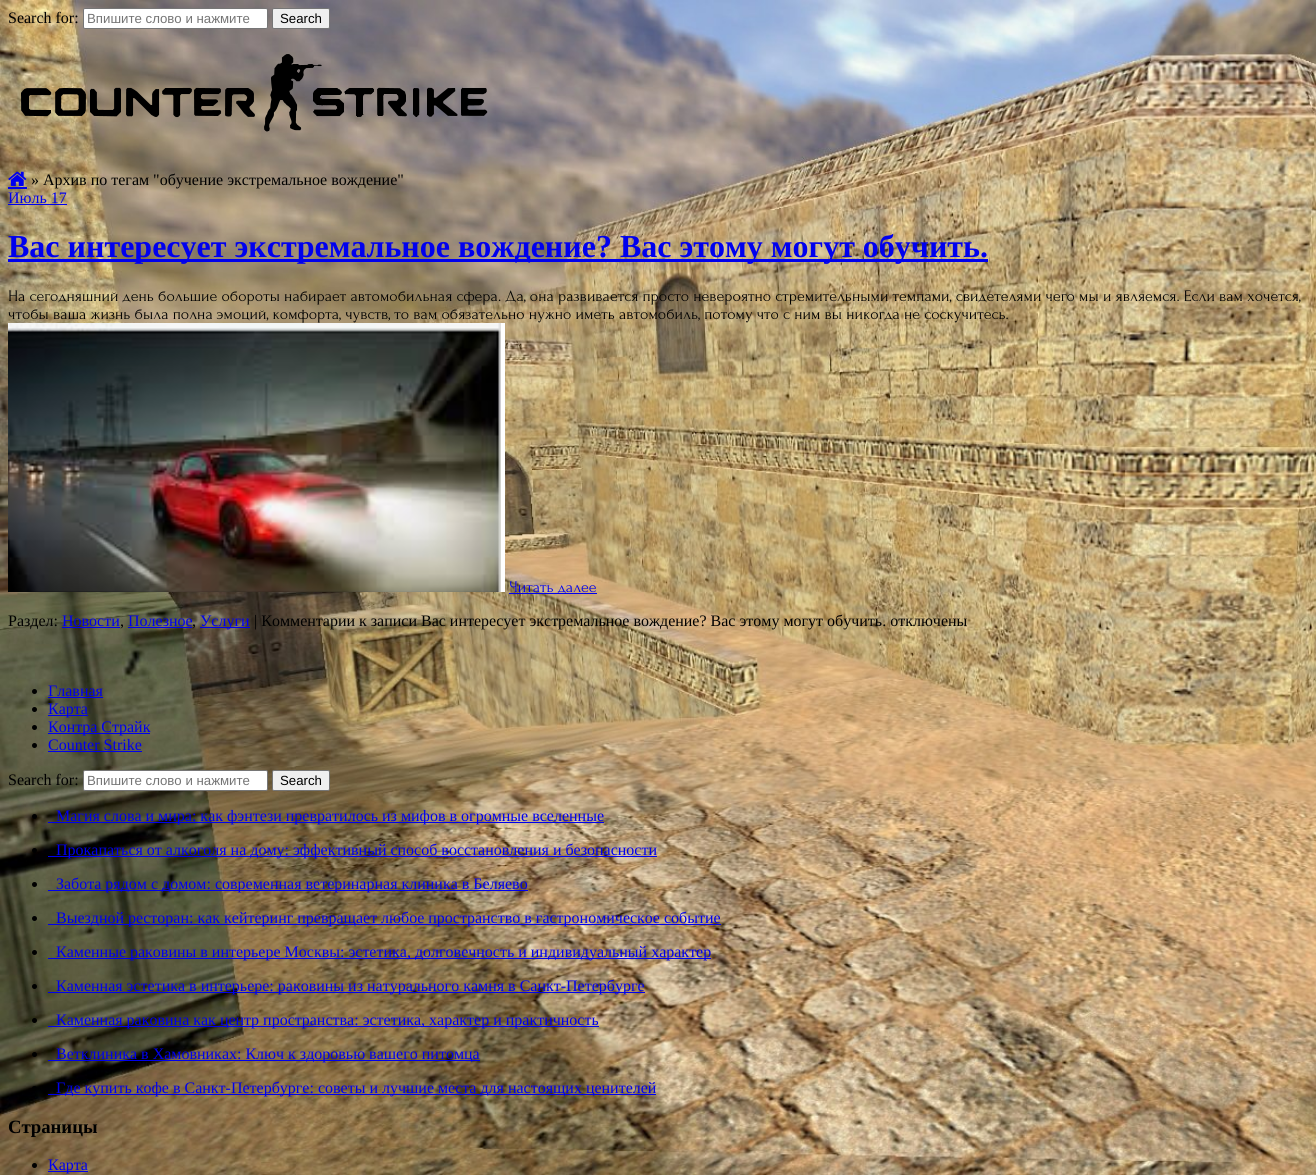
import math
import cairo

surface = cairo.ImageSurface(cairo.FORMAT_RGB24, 1316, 1175)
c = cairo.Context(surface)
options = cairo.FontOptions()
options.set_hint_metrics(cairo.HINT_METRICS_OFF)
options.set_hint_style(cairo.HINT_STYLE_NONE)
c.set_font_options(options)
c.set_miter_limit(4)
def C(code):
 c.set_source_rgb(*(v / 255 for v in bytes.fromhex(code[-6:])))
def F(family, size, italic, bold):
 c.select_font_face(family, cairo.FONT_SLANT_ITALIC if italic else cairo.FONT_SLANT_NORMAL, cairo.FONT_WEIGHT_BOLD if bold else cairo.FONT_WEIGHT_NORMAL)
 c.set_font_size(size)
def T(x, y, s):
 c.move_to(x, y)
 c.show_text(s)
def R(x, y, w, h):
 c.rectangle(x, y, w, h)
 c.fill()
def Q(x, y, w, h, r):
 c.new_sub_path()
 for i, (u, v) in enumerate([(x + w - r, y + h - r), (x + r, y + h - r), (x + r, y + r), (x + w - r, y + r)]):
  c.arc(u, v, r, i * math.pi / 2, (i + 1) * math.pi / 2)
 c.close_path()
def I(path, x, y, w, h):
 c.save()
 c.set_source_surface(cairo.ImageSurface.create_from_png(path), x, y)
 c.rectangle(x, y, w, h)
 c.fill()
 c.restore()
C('ffffff')
c.paint()
I('1.png',0,0,1316,1175)
F('Liberation Serif',16,0,0)
C('000000')
T(8,23,'Search for:')
C('ffffff')
Q(83.5,8.5,184,20,1.5)
c.fill_preserve()
C('767676')
c.set_line_width(1)
c.stroke()
F('Liberation Sans',13.25,0,0)
C('757575')
T(87,23,'Впишите слово и нажмите')
C('efefef')
Q(272.5,8.5,57,20,1.5)
c.fill_preserve()
C('767676')
c.stroke()
C('000000')
T(280,23,'Search')
I('2.png',21,54,467,78)
I('3.png',8,171,19,15)
F('Liberation Serif',16,0,0)
T(31,185,'» Архив по тегам "обучение экстремальное вождение"')
C('0000ee')
R(8,187,19,2)
T(8,203,'Июль 17')
R(8,204,59,1)
R(8,259,980,3)
F('Liberation Serif',32,0,1)
T(8,257,'Вас интересует экстремальное вождение? Вас этому могут обучить.')
F('Forum',16,0,0)
C('000000')
T(8,301,'На сегодняшний день большие обороты набирает автомобильная сфера. Да, она развивается просто невероятно стремительными темпами, свидетелями чего мы и являемся. Если вам хочется,')
T(8,319,'чтобы ваша жизнь была полна эмоций, комфорта, чувств, то вам обязательно нужно иметь автомобиль, потому что с ним вы никогда не соскучитесь.')
I('4.png',8,323,497,269)
C('0000ee')
R(509,593,88,1)
T(509,592,'Читать далее')
F('Liberation Serif',16,0,0)
C('000000')
T(8,626,'Раздел:')
C('0000ee')
T(62,626,'Новости')
R(62,627,58,1)
C('000000')
T(120,626,',')
C('0000ee')
T(128,626,'Полезное')
R(128,627,64,1)
C('000000')
T(192,626,',')
C('0000ee')
R(200,627,50,1)
T(200,626,'Услуги')
C('000000')
T(254,626,'| Комментарии к записи Вас интересует экстремальное вождение? Вас этому могут обучить. отключены')
c.new_path()
c.arc(34.5,691.5,2.5,0,2 * math.pi)
c.fill()
C('0000ee')
T(48,696,'Главная')
R(48,697,55,1)
C('000000')
c.new_path()
c.arc(34.5,709.5,2.5,0,2 * math.pi)
c.fill()
C('0000ee')
R(48,715,40,1)
T(48,714,'Карта')
C('000000')
c.new_path()
c.arc(34.5,727.5,2.5,0,2 * math.pi)
c.fill()
C('0000ee')
R(48,733,102,1)
T(48,732,'Контра Страйк')
C('000000')
c.new_path()
c.arc(34.5,745.5,2.5,0,2 * math.pi)
c.fill()
C('0000ee')
T(48,750,'Counter Strike')
R(48,751,94,1)
C('000000')
T(8,785,'Search for:')
C('ffffff')
Q(83.5,770.5,184,20,1.5)
c.fill_preserve()
C('767676')
c.stroke()
F('Liberation Sans',13.25,0,0)
C('757575')
T(87,785,'Впишите слово и нажмите')
C('efefef')
Q(272.5,770.5,57,20,1.5)
c.fill_preserve()
C('767676')
c.stroke()
C('000000')
T(280,785,'Search')
c.new_path()
c.arc(34.5,816.5,2.5,0,2 * math.pi)
c.fill()
C('0000ee')
R(48,822,556,1)
F('Liberation Serif',16,0,0)
T(56,821,'Магия слова и мира: как фэнтези превратилось из мифов в огромные вселенные')
C('000000')
c.new_path()
c.arc(34.5,850.5,2.5,0,2 * math.pi)
c.fill()
C('0000ee')
R(48,856,609,1)
T(56,855,'Прокапаться от алкоголя на дому: эффективный способ восстановления и безопасности')
C('000000')
c.new_path()
c.arc(34.5,884.5,2.5,0,2 * math.pi)
c.fill()
C('0000ee')
R(48,890,480,1)
T(56,889,'Забота рядом с домом: современная ветеринарная клиника в Беляево')
C('000000')
c.new_path()
c.arc(34.5,918.5,2.5,0,2 * math.pi)
c.fill()
C('0000ee')
R(48,924,673,1)
T(56,923,'Выездной ресторан: как кейтеринг превращает любое пространство в гастрономическое событие')
C('000000')
c.new_path()
c.arc(34.5,952.5,2.5,0,2 * math.pi)
c.fill()
C('0000ee')
R(48,958,663,1)
T(56,957,'Каменные раковины в интерьере Москвы: эстетика, долговечность и индивидуальный характер')
C('000000')
c.new_path()
c.arc(34.5,986.5,2.5,0,2 * math.pi)
c.fill()
C('0000ee')
R(48,992,597,1)
T(56,991,'Каменная эстетика в интерьере: раковины из натурального камня в Санкт-Петербурге')
C('000000')
c.new_path()
c.arc(34.5,1020.5,2.5,0,2 * math.pi)
c.fill()
C('0000ee')
R(48,1026,551,1)
T(56,1025,'Каменная раковина как центр пространства: эстетика, характер и практичность')
C('000000')
c.new_path()
c.arc(34.5,1054.5,2.5,0,2 * math.pi)
c.fill()
C('0000ee')
R(48,1060,432,1)
T(56,1059,'Ветклиника в Хамовниках: Ключ к здоровью вашего питомца')
C('000000')
c.new_path()
c.arc(34.5,1088.5,2.5,0,2 * math.pi)
c.fill()
C('0000ee')
R(48,1094,608,1)
T(56,1093,'Где купить кофе в Санкт-Петербурге: советы и лучшие места для настоящих ценителей')
F('Liberation Serif',18.75,0,1)
C('000000')
T(8,1133,'Страницы')
c.new_path()
c.arc(34.5,1165.5,2.5,0,2 * math.pi)
c.fill()
C('0000ee')
R(48,1171,40,1)
F('Liberation Serif',16,0,0)
T(48,1170,'Карта')
surface.write_to_png('o.png')
